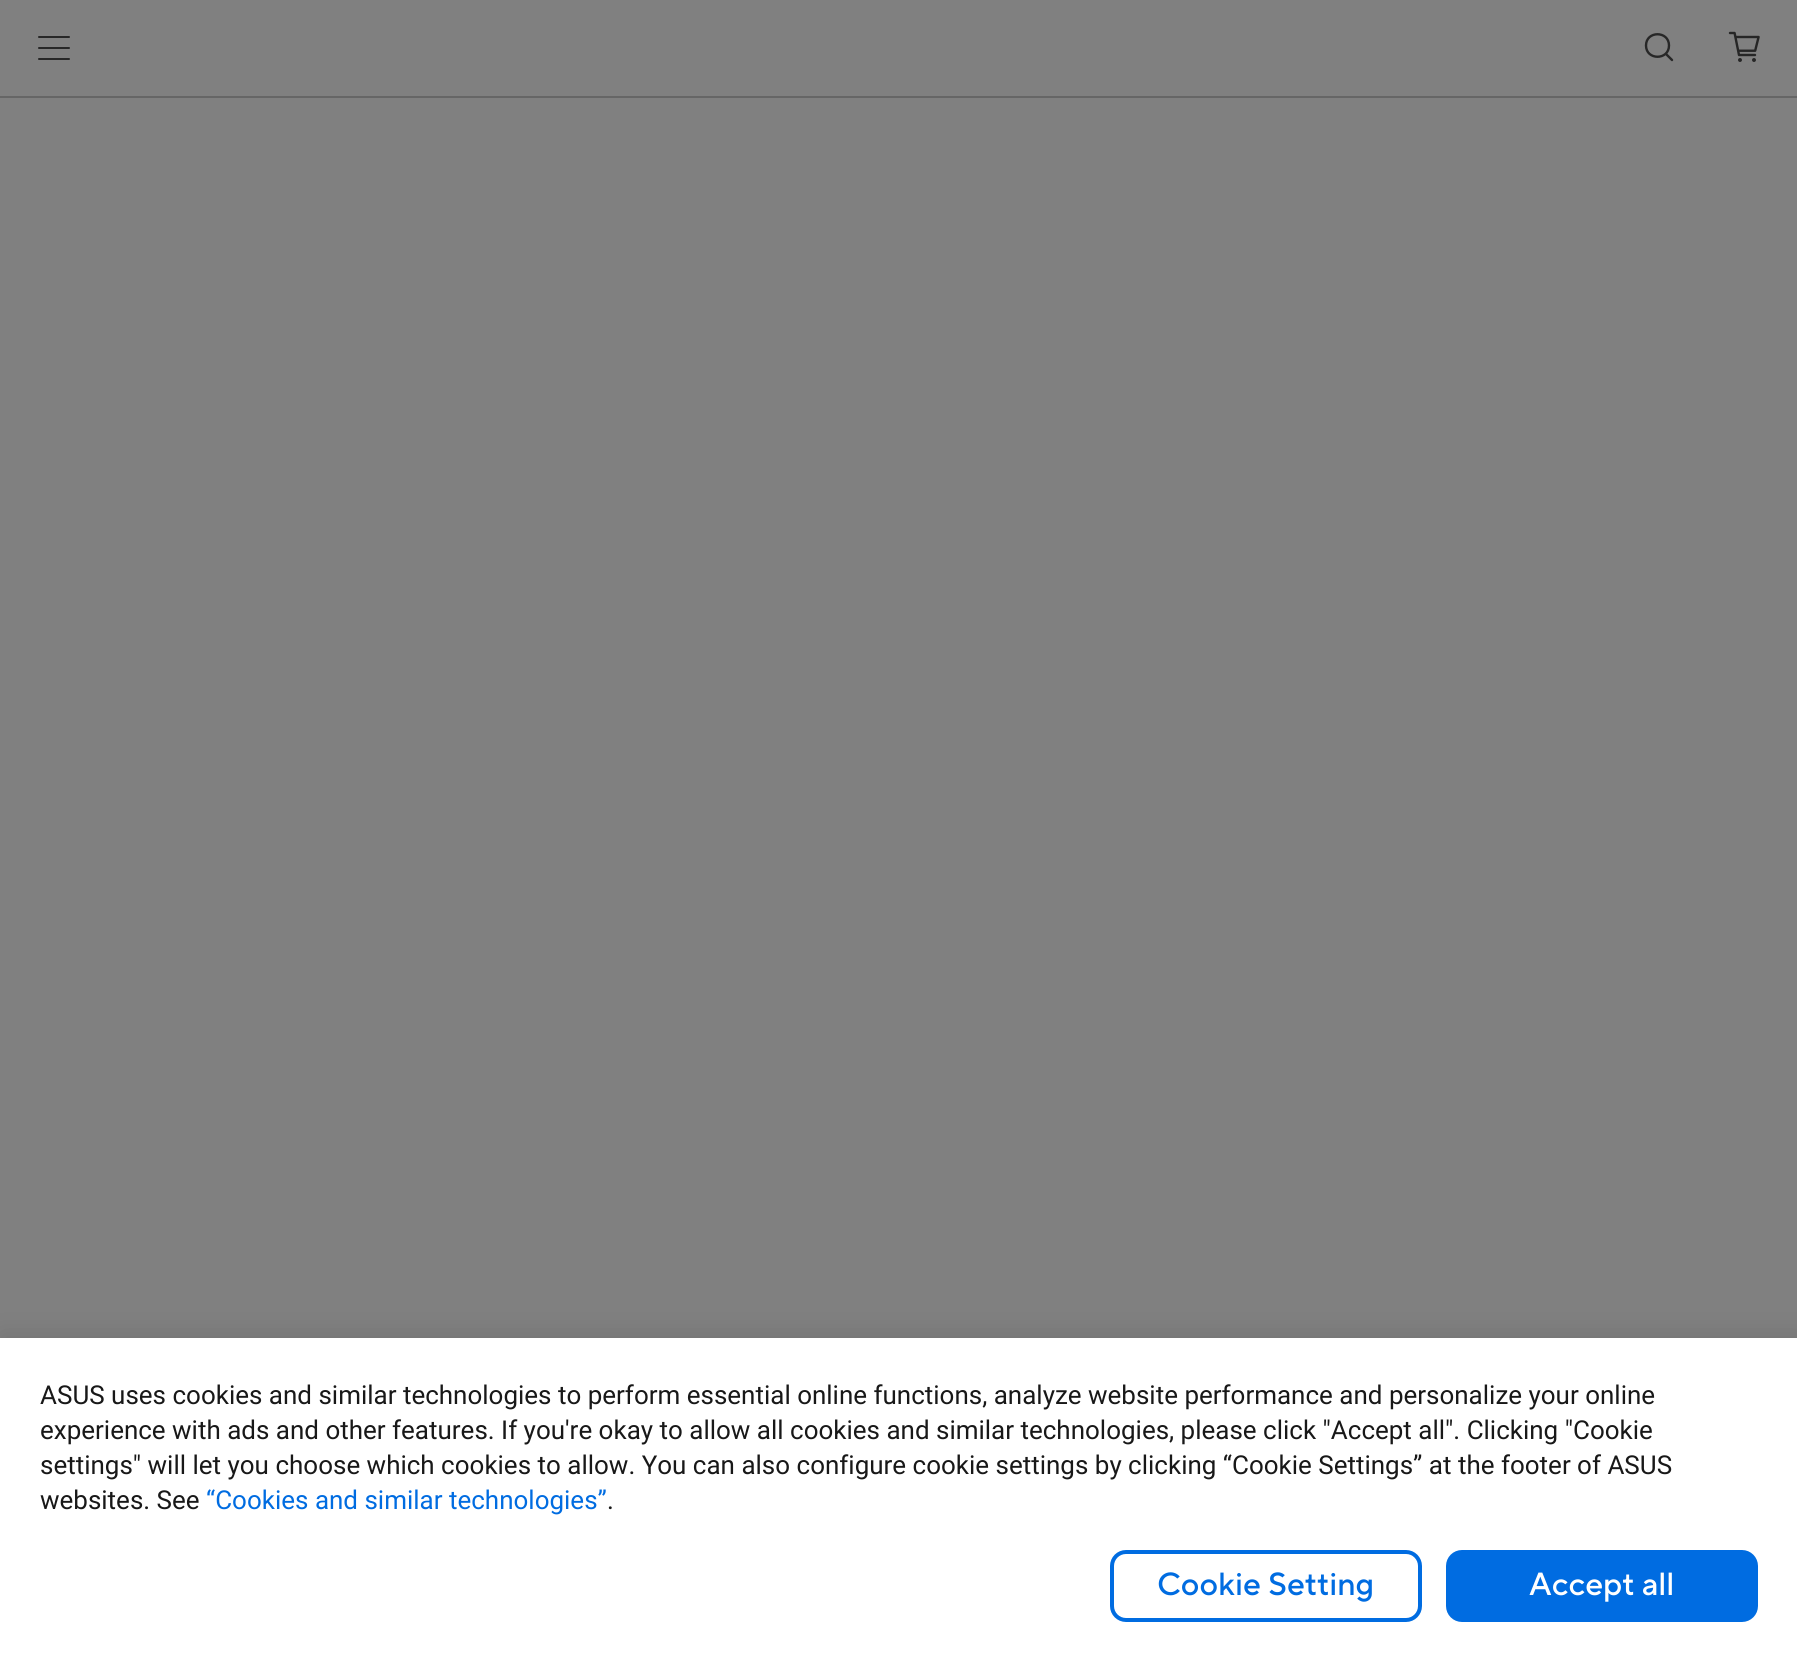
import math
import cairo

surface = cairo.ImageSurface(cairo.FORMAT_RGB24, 1797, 1662)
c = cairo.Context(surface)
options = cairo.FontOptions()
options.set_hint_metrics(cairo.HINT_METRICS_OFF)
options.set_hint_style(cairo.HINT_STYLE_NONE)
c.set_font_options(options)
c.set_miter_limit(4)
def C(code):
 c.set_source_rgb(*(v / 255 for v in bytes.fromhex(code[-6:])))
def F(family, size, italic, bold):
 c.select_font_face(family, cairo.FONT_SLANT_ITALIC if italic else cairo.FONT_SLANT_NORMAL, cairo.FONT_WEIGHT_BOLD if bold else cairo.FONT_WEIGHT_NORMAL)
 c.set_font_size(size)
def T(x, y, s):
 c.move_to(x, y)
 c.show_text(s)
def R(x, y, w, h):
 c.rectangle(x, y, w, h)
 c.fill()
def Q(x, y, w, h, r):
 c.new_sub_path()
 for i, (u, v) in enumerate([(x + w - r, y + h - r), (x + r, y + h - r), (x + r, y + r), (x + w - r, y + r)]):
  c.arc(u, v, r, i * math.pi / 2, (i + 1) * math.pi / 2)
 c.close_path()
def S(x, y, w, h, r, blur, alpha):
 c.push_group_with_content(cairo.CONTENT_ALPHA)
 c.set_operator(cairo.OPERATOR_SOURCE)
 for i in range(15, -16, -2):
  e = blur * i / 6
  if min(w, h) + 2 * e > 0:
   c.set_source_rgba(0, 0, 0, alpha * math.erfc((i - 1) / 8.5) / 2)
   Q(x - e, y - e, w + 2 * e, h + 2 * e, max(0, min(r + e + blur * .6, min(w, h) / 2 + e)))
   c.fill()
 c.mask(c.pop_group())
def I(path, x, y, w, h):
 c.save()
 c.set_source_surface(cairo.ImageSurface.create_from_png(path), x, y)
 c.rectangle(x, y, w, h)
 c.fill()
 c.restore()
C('808080')
c.paint()
C('666666')
R(0,96,1797,2)
c.new_path()
c.move_to(39,48)
c.line_to(69,48)
c.move_to(39,37)
c.line_to(69,37)
c.move_to(39,59)
c.line_to(69,59)
C('272727')
c.set_line_cap(cairo.LINE_CAP_ROUND)
c.stroke()
c.new_path()
c.move_to(1666,54)
c.line_to(1672,60)
c.move_to(1669,45.5)
c.curve_to(1669,60.5,1646,60.5,1646,45.5)
c.curve_to(1646,30.5,1669,30.5,1669,45.5)
c.close_path()
c.set_line_width(2.4)
c.stroke()
I('1.png',1728,31,32,31)
C('000000')
S(2,1334,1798,324,0,12,.1)
C('ffffff')
R(0,1338,1797,324)
F('Roboto',26,0,0)
C('181818')
T(40,1404,'ASUS uses cookies and similar technologies to perform essential online functions, analyze website performance and personalize your online')
T(40,1439,'experience with ads and other features. If you\'re okay to allow all cookies and similar technologies, please click "Accept all". Clicking "Cookie')
T(40,1474,'settings" will let you choose which cookies to allow. You can also configure cookie settings by clicking “Cookie Settings” at the footer of ASUS')
T(40,1509,'websites. See')
C('006ce1')
T(206,1509,'“Cookies and similar technologies”')
C('181818')
T(607,1509,'.')
Q(1112,1552,308,68,14)
C('006ce1')
c.set_line_width(4)
c.set_line_cap(cairo.LINE_CAP_BUTT)
c.stroke()
F('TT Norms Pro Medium',32,0,0)
T(1157,1595,'Cookie Setting')
Q(1448,1552,308,68,14)
c.fill_preserve()
c.stroke()
C('ffffff')
T(1529,1595,'Accept all')
surface.write_to_png('o.png')
